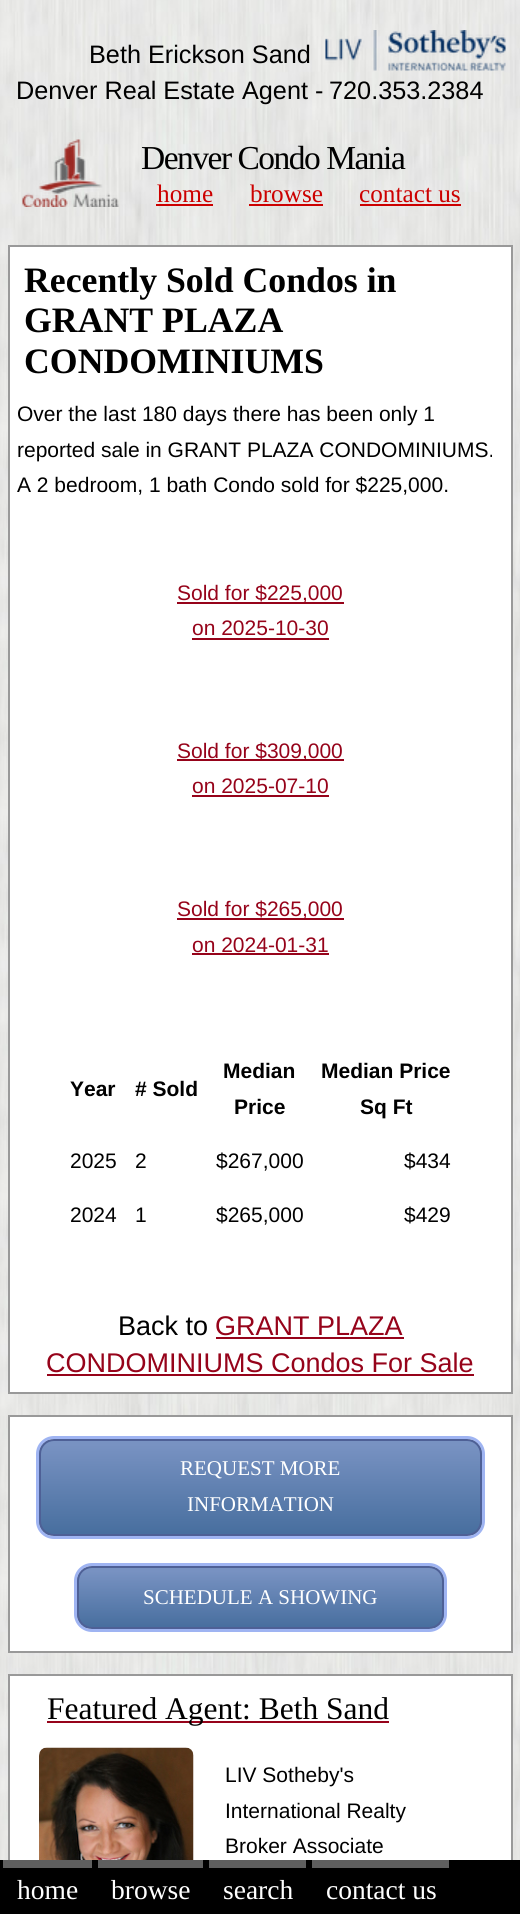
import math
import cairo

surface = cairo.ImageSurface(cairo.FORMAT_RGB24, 520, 1914)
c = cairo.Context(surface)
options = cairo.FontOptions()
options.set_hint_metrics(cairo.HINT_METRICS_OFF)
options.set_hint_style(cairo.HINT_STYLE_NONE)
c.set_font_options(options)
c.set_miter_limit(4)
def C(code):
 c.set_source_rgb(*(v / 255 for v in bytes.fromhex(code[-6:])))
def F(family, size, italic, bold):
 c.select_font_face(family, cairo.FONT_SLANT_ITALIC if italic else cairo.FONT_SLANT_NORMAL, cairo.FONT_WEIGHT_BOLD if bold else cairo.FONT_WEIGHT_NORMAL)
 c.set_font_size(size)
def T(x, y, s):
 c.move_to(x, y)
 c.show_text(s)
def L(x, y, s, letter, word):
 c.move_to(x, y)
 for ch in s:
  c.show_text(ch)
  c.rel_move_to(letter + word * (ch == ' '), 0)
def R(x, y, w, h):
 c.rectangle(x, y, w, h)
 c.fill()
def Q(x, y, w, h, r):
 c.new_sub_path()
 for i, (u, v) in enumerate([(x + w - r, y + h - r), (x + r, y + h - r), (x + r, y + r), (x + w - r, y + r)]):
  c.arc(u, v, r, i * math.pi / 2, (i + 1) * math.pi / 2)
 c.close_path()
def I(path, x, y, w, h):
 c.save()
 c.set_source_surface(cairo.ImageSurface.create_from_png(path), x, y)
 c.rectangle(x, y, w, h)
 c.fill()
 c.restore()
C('ffffff')
c.paint()
I('1.png',0,0,520,1860)
I('2.png',325,30,181,41)
F('Liberation Sans',25.25,0,0)
C('000000')
T(89,63,'Beth Erickson Sand')
T(16,99,'Denver Real Estate Agent -')
T(329,99,'720.353.2384')
I('3.png',22,139,97,68)
F('Liberation Serif',33.5,0,0)
L(141,169,'Denver Condo Mania',-1.5,0)
F('Liberation Serif',25.25,0,0)
C('cc0000')
T(157,202,'home')
R(156,204,57,2)
T(250,202,'browse')
R(249,204,74,2)
T(359,202,'contact us')
R(360,204,101,2)
C('ffffff')
c.rectangle(9,246,503,1147)
c.fill_preserve()
C('999999')
c.stroke()
F('Liberation Serif',35.75,0,1)
C('000000')
T(24,292,'Recently Sold Condos in')
T(24,332,'GRANT PLAZA')
T(24,373,'CONDOMINIUMS')
F('Liberation Sans',21,0,0)
T(17,421,'Over the last 180 days there has been only 1')
T(17,457,'reported sale in GRANT PLAZA CONDOMINIUMS.')
T(17,492,'A 2 bedroom, 1 bath Condo sold for $225,000.')
C('96031a')
R(177,602,167,2)
T(177,600,'Sold for $225,000')
T(192,635,'on 2025-10-30')
R(192,638,137,2)
R(177,759,167,2)
T(177,758,'Sold for $309,000')
T(192,793,'on 2025-07-10')
R(192,795,137,2)
R(177,918,167,2)
T(177,916,'Sold for $265,000')
T(192,952,'on 2024-01-31')
R(192,953,137,2)
F('Liberation Sans',21,0,1)
C('000000')
T(70,1096,'Year')
T(135,1096,'# Sold')
T(223,1078,'Median')
T(234,1114,'Price')
T(321,1078,'Median Price')
T(360,1114,'Sq Ft')
F('Liberation Sans',21,0,0)
T(70,1168,'2025')
T(135,1168,'2')
T(216,1168,'$267,000')
T(404,1168,'$434')
T(70,1222,'2024')
T(135,1222,'1')
T(216,1222,'$265,000')
T(404,1222,'$429')
F('Liberation Sans',27,0,0)
T(118,1335,'Back to')
C('96031a')
T(215,1335,'GRANT PLAZA')
R(216,1337,188,2)
T(46,1372,'CONDOMINIUMS Condos For Sale')
R(47,1374,427,2)
C('ffffff')
c.rectangle(9,1416,503,236)
c.fill_preserve()
C('999999')
c.stroke()
Q(37.5,1437.5,446,100,16.5)
C('9fb4f2')
c.set_line_width(3)
c.stroke()
c.save()
Q(39,1439,443,97,15)
c.clip()
gradient = cairo.LinearGradient(260,1440,260,1535)
gradient.add_color_stop_rgba(.05,0.471,0.573,0.761,1)
gradient.add_color_stop_rgba(1,0.278,0.431,0.62,1)
c.set_source(gradient)
R(39,1440,443,95)
c.restore()
Q(40,1440,441,95,14)
C('4e6096')
c.set_line_width(2)
c.stroke()
F('Liberation Serif',21,0,0)
C('ffffff')
T(180,1475,'REQUEST MORE')
T(187,1511,'INFORMATION')
Q(75.5,1564.5,370,66,16.5)
C('9fb4f2')
c.set_line_width(3)
c.stroke()
c.save()
Q(77,1566,367,63,15)
c.clip()
gradient = cairo.LinearGradient(260,1568,260,1628)
gradient.add_color_stop_rgba(.05,0.471,0.573,0.761,1)
gradient.add_color_stop_rgba(1,0.278,0.431,0.62,1)
c.set_source(gradient)
R(77,1568,367,60)
c.restore()
Q(78,1567,365,61,14)
C('4e6096')
c.set_line_width(2)
c.stroke()
C('ffffff')
T(143,1604,'SCHEDULE A SHOWING')
R(10,1676,501,184)
c.rectangle(9,1675,503,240)
C('999999')
c.stroke()
C('96031a')
R(47,1721,342,2)
F('Liberation Serif',31.5,0,0)
C('000000')
T(47,1719,'Featured Agent: Beth Sand')
I('4.png',39,1747,155,113)
F('Liberation Sans',21,0,0)
T(225,1782,'LIV Sotheby\'s')
T(225,1818,'International Realty')
T(225,1853,'Broker Associate')
R(0,1860,520,54)
C('5f5f5f')
R(3,1860,89,8)
F('Liberation Serif',27.5,0,0)
C('ffffff')
T(17,1899,'home')
C('5f5f5f')
R(98,1860,105,8)
C('ffffff')
T(111,1899,'browse')
C('5f5f5f')
R(209,1860,97,8)
C('ffffff')
T(223,1899,'search')
C('5f5f5f')
R(312,1860,137,8)
C('ffffff')
T(326,1899,'contact us')
surface.write_to_png('o.png')
